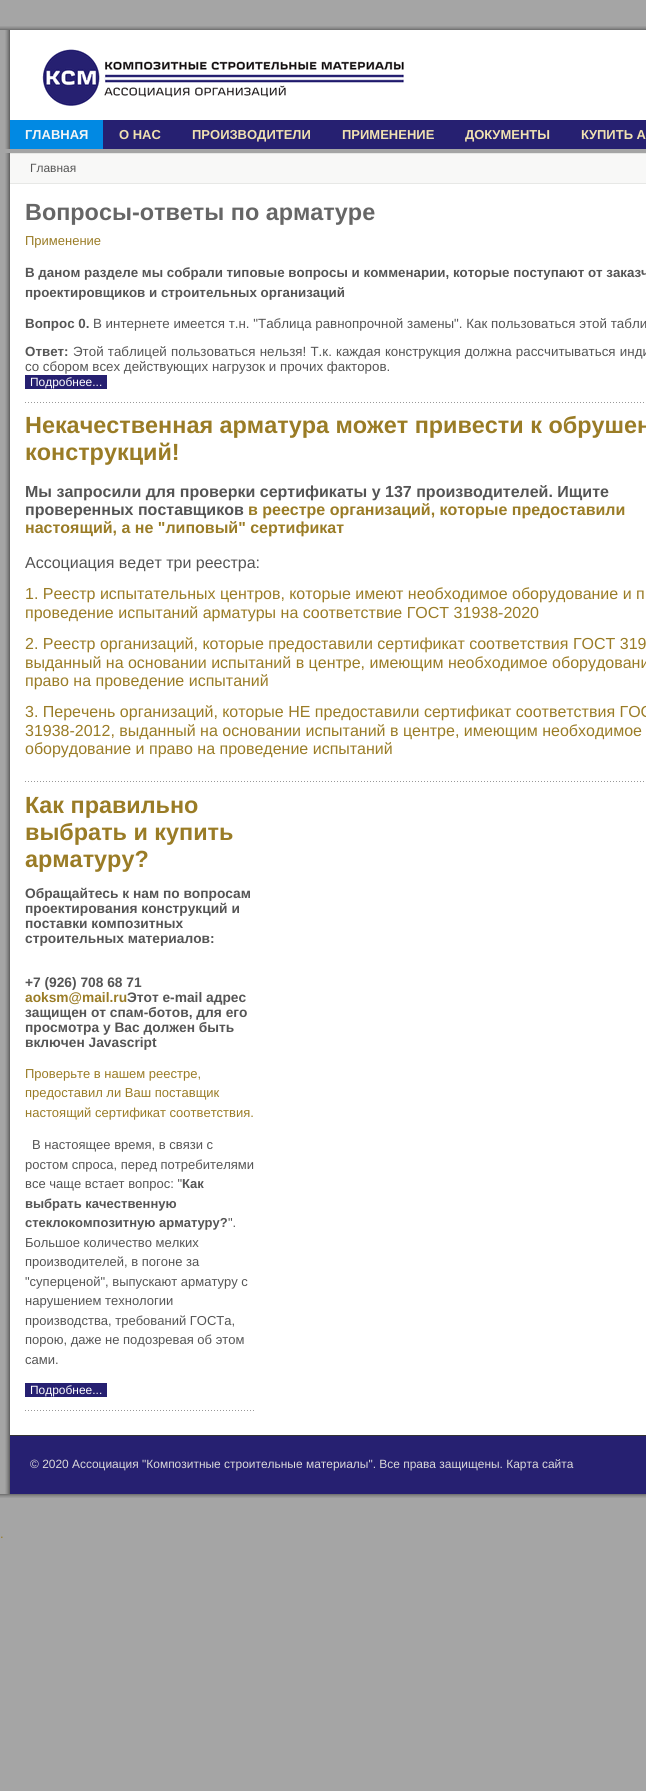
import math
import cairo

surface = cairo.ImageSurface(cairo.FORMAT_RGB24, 646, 1791)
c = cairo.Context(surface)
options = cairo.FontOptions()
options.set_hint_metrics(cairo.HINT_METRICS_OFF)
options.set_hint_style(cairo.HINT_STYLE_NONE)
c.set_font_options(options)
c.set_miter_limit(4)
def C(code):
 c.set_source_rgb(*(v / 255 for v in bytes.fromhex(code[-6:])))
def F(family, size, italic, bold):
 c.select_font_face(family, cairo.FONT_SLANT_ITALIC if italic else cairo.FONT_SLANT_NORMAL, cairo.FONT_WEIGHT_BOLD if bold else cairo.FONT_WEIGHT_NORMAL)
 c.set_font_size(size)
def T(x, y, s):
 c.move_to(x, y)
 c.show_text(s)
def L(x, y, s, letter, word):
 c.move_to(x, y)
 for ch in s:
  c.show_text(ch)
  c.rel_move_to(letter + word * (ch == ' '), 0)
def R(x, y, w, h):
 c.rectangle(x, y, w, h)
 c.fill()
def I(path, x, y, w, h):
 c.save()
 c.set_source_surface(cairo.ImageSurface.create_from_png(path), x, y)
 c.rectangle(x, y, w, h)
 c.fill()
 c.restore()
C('a5a5a5')
c.paint()
I('1.png',0,26,646,4)
I('2.png',5,30,5,90)
C('ffffff')
R(10,30,636,90)
I('3.png',42,49,362,57)
I('4.png',5,120,5,29)
C('262071')
R(103,120,543,29)
C('0189e3')
R(10,120,93,29)
F('Liberation Sans',13,0,1)
C('f5f5f5')
T(25,139,'ГЛАВНАЯ')
C('f0e1b1')
T(119,139,'О НАС')
T(192,139,'ПРОИЗВОДИТЕЛИ')
T(342,139,'ПРИМЕНЕНИЕ')
T(465,139,'ДОКУМЕНТЫ')
T(581,139,'КУПИТЬ А')
I('5.png',5,153,5,1282)
C('ffffff')
R(10,184,636,1251)
C('f8f8f7')
R(10,154,636,29)
C('e7e8e6')
R(10,153,636,1)
R(10,183,636,1)
F('Liberation Sans',11.95,0,0)
C('555555')
T(30,172,'Главная')
F('Liberation Sans',23.4,0,1)
C('666666')
T(25,220,'Вопросы-ответы по арматуре')
F('Liberation Sans',13,0,0)
C('9a7c26')
T(25,245,'Применение')
F('Liberation Sans',13.35,0,1)
C('555555')
T(25,277,'В даном разделе мы собрали типовые вопросы и комменарии, которые поступают от заказч')
T(25,297,'проектировщиков и строительных организаций')
T(25,328,'Вопрос 0.')
F('Liberation Sans',13.35,0,0)
T(93,328,'В интернете имеется т.н. "Таблица равнопрочной замены". Как пользоваться этой табли')
F('Liberation Sans',13.35,0,1)
T(25,356,'Ответ:')
F('Liberation Sans',13.35,0,0)
L(73,356,'Этой таблицей пользоваться нельзя! Т.к. каждая конструкция должна рассчитываться инди',0,.5)
T(25,371,'со сбором всех действующих нагрузок и прочих факторов.')
C('262071')
R(25,375,82,14)
F('Liberation Sans',11.95,0,0)
C('ffffff')
T(30,386,'Подробнее...')
I('6.png',25,402,619,1)
F('Liberation Sans',23.4,0,1)
C('9a7c26')
T(25,433,'Некачественная арматура может привести к обрушен')
T(25,460,'конструкций!')
F('Liberation Sans',16,0,1)
C('555555')
T(25,497,'Мы запросили для проверки сертификаты у 137 производителей. Ищите')
T(25,515,'проверенных поставщиков')
C('9a7c26')
T(248,515,'в реестре организаций, которые предоставили')
T(25,533,'настоящий, а не "липовый" сертификат')
F('Liberation Sans',16,0,0)
C('555555')
T(25,568,'Ассоциация ведет три реестра:')
C('9a7c26')
T(25,599,'1. Реестр испытательных центров, которые имеют необходимое оборудование и п')
T(25,618,'проведение испытаний арматуры на соответствие ГОСТ 31938-2020')
T(25,649,'2. Реестр организаций, которые предоставили сертификат соответствия ГОСТ 319')
T(25,668,'выданный на основании испытаний в центре, имеющим необходимое оборудовани')
T(25,686,'право на проведение испытаний')
T(25,717,'3. Перечень организаций, которые НЕ предоставили сертификат соответствия ГОС')
T(25,736,'31938-2012, выданный на основании испытаний в центре, имеющим необходимое')
T(25,754,'оборудование и право на проведение испытаний')
I('6.png',25,781,619,1)
F('Liberation Sans',23.4,0,1)
T(25,813,'Как правильно')
T(25,840,'выбрать и купить')
T(25,867,'арматуру?')
F('Liberation Sans',13.75,0,1)
C('555555')
T(25,898,'Обращайтесь к нам по вопросам')
T(25,913,'проектирования конструкций и')
T(25,928,'поставки композитных')
T(25,943,'строительных материалов:')
T(25,987,'+7 (926) 708 68 71')
C('9a7c26')
T(25,1002,'aoksm@mail.ru')
C('555555')
T(127,1002,'Этот e-mail адрес')
T(25,1017,'защищен от спам-ботов, для его')
T(25,1032,'просмотра у Вас должен быть')
T(25,1047,'включен Javascript')
F('Liberation Sans',13,0,0)
C('9a7c26')
T(25,1078,'Проверьте в нашем реестре,')
T(25,1097,'предоставил ли Ваш поставщик')
T(25,1117,'настоящий сертификат соответствия.')
C('555555')
T(32,1149,'В настоящее время, в связи с')
T(25,1169,'ростом спроса, перед потребителями')
T(25,1188,'все чаще встает вопрос: "')
F('Liberation Sans',13,0,1)
T(182,1188,'Как')
T(25,1208,'выбрать качественную')
T(25,1227,'стеклокомпозитную арматуру?')
F('Liberation Sans',13,0,0)
T(228,1227,'".')
T(25,1247,'Большое количество мелких')
T(25,1266,'производителей, в погоне за')
T(25,1286,'"суперценой", выпускают арматуру с')
T(25,1305,'нарушением технологии')
T(25,1325,'производства, требований ГОСТа,')
T(25,1344,'порою, даже не подозревая об этом')
T(25,1364,'сами.')
C('262071')
R(25,1383,82,14)
F('Liberation Sans',11.95,0,0)
C('ffffff')
T(30,1394,'Подробнее...')
I('7.png',25,1410,229,1)
I('8.png',0,1494,646,4)
I('9.png',5,1435,5,59)
C('262071')
R(10,1436,636,58)
C('333333')
R(10,1435,636,1)
C('dbd9d9')
T(30,1468,'© 2020 Ассоциация "Композитные строительные материалы". Все права защищены. Карта сайта')
F('Liberation Sans',13,0,0)
C('9a7c26')
T(0,1538,'.')
surface.write_to_png('o.png')
